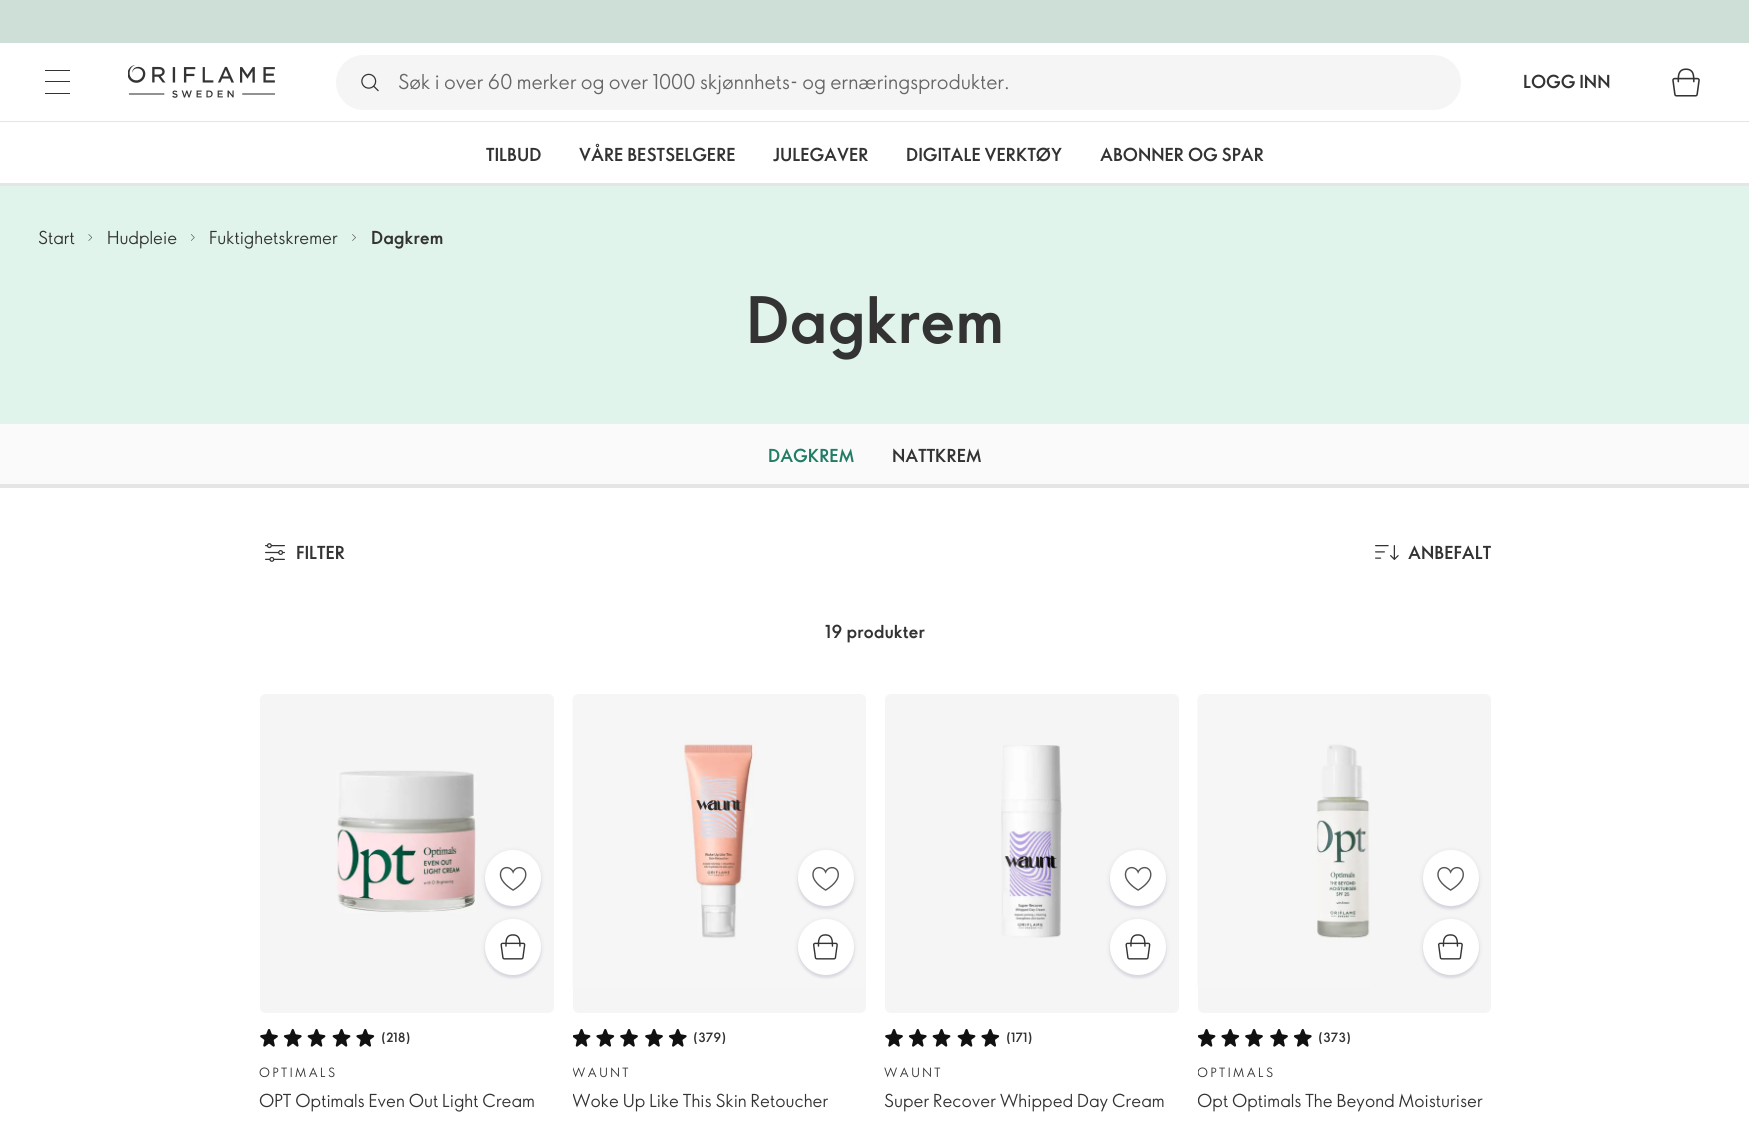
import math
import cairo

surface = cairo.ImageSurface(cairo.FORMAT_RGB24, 1749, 1126)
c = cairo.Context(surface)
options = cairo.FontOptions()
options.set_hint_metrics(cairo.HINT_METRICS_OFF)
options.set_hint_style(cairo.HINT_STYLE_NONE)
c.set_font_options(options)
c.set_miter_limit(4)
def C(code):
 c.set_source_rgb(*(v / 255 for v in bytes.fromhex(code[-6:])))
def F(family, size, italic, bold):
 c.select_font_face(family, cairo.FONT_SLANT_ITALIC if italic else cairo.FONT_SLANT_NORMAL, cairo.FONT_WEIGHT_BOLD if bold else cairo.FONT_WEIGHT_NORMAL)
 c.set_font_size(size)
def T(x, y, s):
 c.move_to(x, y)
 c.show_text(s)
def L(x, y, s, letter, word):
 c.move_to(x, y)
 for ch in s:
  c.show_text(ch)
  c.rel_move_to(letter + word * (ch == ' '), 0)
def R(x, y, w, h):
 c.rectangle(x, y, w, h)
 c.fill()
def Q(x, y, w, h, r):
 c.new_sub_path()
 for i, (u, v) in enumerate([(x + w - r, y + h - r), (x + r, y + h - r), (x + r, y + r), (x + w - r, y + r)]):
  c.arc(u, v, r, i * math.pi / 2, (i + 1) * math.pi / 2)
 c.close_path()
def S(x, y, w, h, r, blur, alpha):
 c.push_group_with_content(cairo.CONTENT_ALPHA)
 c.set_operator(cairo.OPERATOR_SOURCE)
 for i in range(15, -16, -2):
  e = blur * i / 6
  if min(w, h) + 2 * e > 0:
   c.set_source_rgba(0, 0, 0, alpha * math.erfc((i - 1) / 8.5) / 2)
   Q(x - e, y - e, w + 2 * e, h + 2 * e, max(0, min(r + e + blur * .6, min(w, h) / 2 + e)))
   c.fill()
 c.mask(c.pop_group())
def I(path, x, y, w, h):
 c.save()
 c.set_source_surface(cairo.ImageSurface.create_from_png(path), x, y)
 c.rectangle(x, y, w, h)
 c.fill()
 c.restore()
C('ffffff')
c.paint()
C('e5e5e5')
R(0,121,1749,1)
C('cedfd7')
R(0,0,1749,43)
C('333333')
R(45,70,25,1)
R(45,81,25,1)
R(45,93,25,1)
I('1.png',128,65,147,33)
C('f5f5f5')
Q(336,55,1125,55,27.5)
c.fill()
I('2.png',361,73,18,19)
F('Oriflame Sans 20',20,0,0)
C('666666')
T(398,89,'Søk i over 60 merker og over 1000 skjønnhets- og ernæringsprodukter.')
F('Oriflame Sans 20',17.5,0,1)
C('333333')
T(1523,88,'LOGG INN')
I('3.png',1672,68,28,29)
T(486,161,'TILBUD')
T(579,161,'VÅRE BESTSELGERE')
T(773,161,'JULEGAVER')
T(906,161,'DIGITALE VERKTØY')
T(1100,161,'ABONNER OG SPAR')
C('e5e5e5')
R(0,183,1749,3)
C('e1f4eb')
R(0,186,1749,238)
F('Oriflame Sans 20',17.5,0,0)
C('333333')
T(38,244,'Start')
I('4.png',88,234,4,7)
T(107,244,'Hudpleie')
I('5.png',191,234,4,7)
T(209,244,'Fuktighetskremer')
I('6.png',352,234,4,7)
F('Oriflame Sans 20',17.5,0,1)
T(371,244,'Dagkrem')
F('Oriflame Sans 20',62.5,0,1)
T(746,343,'Dagkrem')
C('fafafa')
R(0,424,1749,60)
F('Oriflame Sans 20',17.5,0,1)
C('227c66')
T(768,462,'DAGKREM')
C('333333')
T(892,462,'NATTKREM')
C('e5e5e5')
R(0,484,1749,4)
I('7.png',265,543,20,19)
C('333333')
T(296,559,'FILTER')
I('8.png',1375,545,24,15)
T(1408,559,'ANBEFALT')
T(825,638,'19 produkter')
C('f5f5f5')
c.new_path()
c.move_to(266,694)
c.line_to(548,694)
c.curve_to(551.5,694,554,696.5,554,700)
c.line_to(554,988)
c.line_to(260,988)
c.line_to(260,700)
c.curve_to(260,696.5,262.5,694,266,694)
c.close_path()
c.fill()
I('9.png',336,770,141,143)
C('000042')
S(485,851,56,57,28,3,.08)
S(485,853,56,56,28,1,.08)
C('ffffff')
c.arc(513,878,28,0,2 * math.pi)
c.fill()
I('10.png',499,866,28,25)
C('000042')
S(485,920,56,56,28,3,.08)
S(485,921,56,57,28,1,.08)
C('ffffff')
c.arc(513,947,28,0,2 * math.pi)
c.fill()
I('11.png',500,934,26,26)
C('f5f5f5')
c.new_path()
c.move_to(260,988)
c.line_to(554,988)
c.line_to(554,1007)
c.curve_to(554,1010.5,551.5,1013,548,1013)
c.line_to(266,1013)
c.curve_to(262.5,1013,260,1010.5,260,1007)
c.close_path()
c.fill()
I('12.png',260,1029,18,18)
I('13.png',283,1028,19,19)
I('14.png',307,1028,19,19)
I('14.png',332,1028,19,19)
I('15.png',356,1028,19,19)
F('Oriflame Sans 20',12.5,0,1)
C('333333')
T(381,1042,'(218)')
F('Oriflame Sans 20',12.5,0,0)
L(259,1077,'OPTIMALS',2.5,0)
F('Oriflame Sans 20',17.5,0,0)
T(259,1107,'OPT Optimals Even Out Light Cream')
C('f5f5f5')
c.new_path()
c.move_to(579,694)
c.line_to(860,694)
c.curve_to(863.5,694,866,696.5,866,700)
c.line_to(866,988)
c.line_to(573,988)
c.line_to(573,700)
c.curve_to(573,696.5,575.5,694,579,694)
c.close_path()
c.fill()
I('16.png',572,695,293,292)
C('000042')
S(798,851,56,57,28,3,.08)
S(798,853,56,56,28,1,.08)
C('ffffff')
c.arc(826,878,28,0,2 * math.pi)
c.fill()
I('17.png',812,866,27,25)
C('000042')
S(798,920,56,56,28,3,.08)
S(798,921,56,57,28,1,.08)
C('ffffff')
c.arc(826,947,28,0,2 * math.pi)
c.fill()
I('18.png',813,934,25,26)
C('f5f5f5')
c.new_path()
c.move_to(573,988)
c.line_to(866,988)
c.line_to(866,1007)
c.curve_to(866,1010.5,863.5,1013,860,1013)
c.line_to(579,1013)
c.curve_to(575.5,1013,573,1010.5,573,1007)
c.close_path()
c.fill()
I('19.png',573,1028,18,19)
I('15.png',596,1028,19,19)
I('12.png',620,1029,18,18)
I('12.png',645,1029,18,18)
I('13.png',668,1028,19,19)
F('Oriflame Sans 20',12.5,0,1)
C('333333')
T(693,1042,'(379)')
c.save()
c.rectangle(573,1063,293,18)
c.clip()
F('Oriflame Sans 20',12.5,0,0)
L(572,1077,'WAUNT',2.5,0)
c.restore()
c.save()
c.rectangle(573,1088,293,25)
c.clip()
F('Oriflame Sans 20',17.5,0,0)
T(572,1107,'Woke Up Like This Skin Retoucher')
c.restore()
C('f5f5f5')
c.new_path()
c.move_to(891,694)
c.line_to(1173,694)
c.curve_to(1176.5,694,1179,696.5,1179,700)
c.line_to(1179,988)
c.line_to(885,988)
c.line_to(885,700)
c.curve_to(885,696.5,887.5,694,891,694)
c.close_path()
c.fill()
I('20.png',1001,745,61,193)
C('000042')
S(1110,851,56,57,28,3,.08)
S(1110,853,56,56,28,1,.08)
C('ffffff')
c.arc(1138,878,28,0,2 * math.pi)
c.fill()
I('10.png',1124,866,28,25)
C('000042')
S(1110,920,56,56,28,3,.08)
S(1110,921,56,57,28,1,.08)
C('ffffff')
c.arc(1138,947,28,0,2 * math.pi)
c.fill()
I('11.png',1125,934,26,26)
C('f5f5f5')
c.new_path()
c.move_to(885,988)
c.line_to(1179,988)
c.line_to(1179,1007)
c.curve_to(1179,1010.5,1176.5,1013,1173,1013)
c.line_to(891,1013)
c.curve_to(887.5,1013,885,1010.5,885,1007)
c.close_path()
c.fill()
I('12.png',885,1029,18,18)
I('13.png',908,1028,19,19)
I('14.png',932,1028,19,19)
I('14.png',957,1028,19,19)
I('15.png',981,1028,19,19)
C('333333')
T(1006,1042,'(171)')
F('Oriflame Sans 20',12.5,0,0)
L(884,1077,'WAUNT',2.5,0)
F('Oriflame Sans 20',17.5,0,0)
T(884,1107,'Super Recover Whipped Day Cream')
C('f5f5f5')
c.new_path()
c.move_to(1204,694)
c.line_to(1485,694)
c.curve_to(1488.5,694,1491,696.5,1491,700)
c.line_to(1491,988)
c.line_to(1198,988)
c.line_to(1198,700)
c.curve_to(1198,696.5,1200.5,694,1204,694)
c.close_path()
c.fill()
I('21.png',1197,695,173,292)
C('000042')
S(1423,851,56,57,28,3,.08)
S(1423,853,56,56,28,1,.08)
C('ffffff')
c.arc(1451,878,28,0,2 * math.pi)
c.fill()
I('17.png',1437,866,27,25)
C('000042')
S(1423,920,56,56,28,3,.08)
S(1423,921,56,57,28,1,.08)
C('ffffff')
c.arc(1451,947,28,0,2 * math.pi)
c.fill()
I('18.png',1438,934,25,26)
C('f5f5f5')
c.new_path()
c.move_to(1198,988)
c.line_to(1491,988)
c.line_to(1491,1007)
c.curve_to(1491,1010.5,1488.5,1013,1485,1013)
c.line_to(1204,1013)
c.curve_to(1200.5,1013,1198,1010.5,1198,1007)
c.close_path()
c.fill()
I('19.png',1198,1028,18,19)
I('15.png',1221,1028,19,19)
I('12.png',1245,1029,18,18)
I('12.png',1270,1029,18,18)
I('13.png',1293,1028,19,19)
F('Oriflame Sans 20',12.5,0,1)
C('333333')
T(1318,1042,'(373)')
c.save()
c.rectangle(1198,1063,293,18)
c.clip()
F('Oriflame Sans 20',12.5,0,0)
L(1197,1077,'OPTIMALS',2.5,0)
c.restore()
c.save()
c.rectangle(1198,1088,293,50)
c.clip()
F('Oriflame Sans 20',17.5,0,0)
T(1197,1107,'Opt Optimals The Beyond Moisturiser')
c.restore()
surface.write_to_png('o.png')
